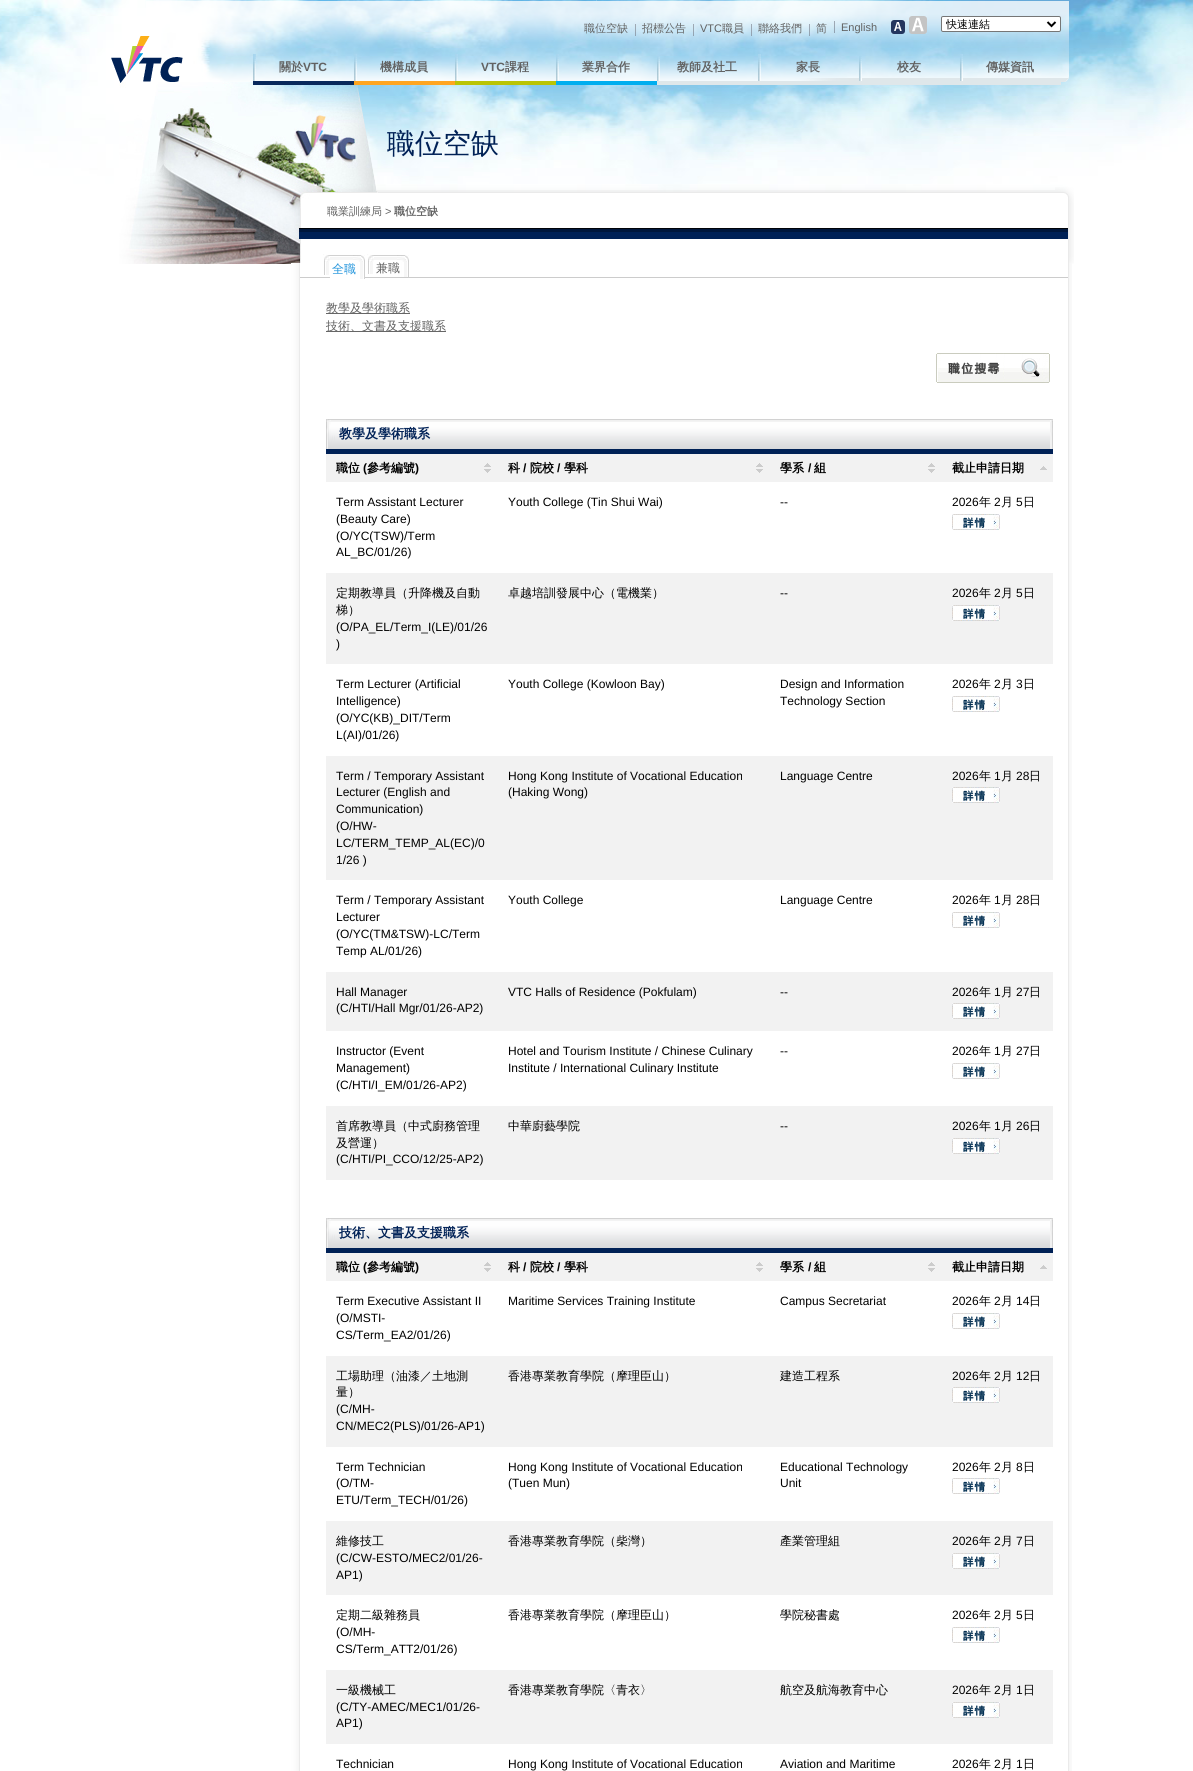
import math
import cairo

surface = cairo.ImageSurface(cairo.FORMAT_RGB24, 1193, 1771)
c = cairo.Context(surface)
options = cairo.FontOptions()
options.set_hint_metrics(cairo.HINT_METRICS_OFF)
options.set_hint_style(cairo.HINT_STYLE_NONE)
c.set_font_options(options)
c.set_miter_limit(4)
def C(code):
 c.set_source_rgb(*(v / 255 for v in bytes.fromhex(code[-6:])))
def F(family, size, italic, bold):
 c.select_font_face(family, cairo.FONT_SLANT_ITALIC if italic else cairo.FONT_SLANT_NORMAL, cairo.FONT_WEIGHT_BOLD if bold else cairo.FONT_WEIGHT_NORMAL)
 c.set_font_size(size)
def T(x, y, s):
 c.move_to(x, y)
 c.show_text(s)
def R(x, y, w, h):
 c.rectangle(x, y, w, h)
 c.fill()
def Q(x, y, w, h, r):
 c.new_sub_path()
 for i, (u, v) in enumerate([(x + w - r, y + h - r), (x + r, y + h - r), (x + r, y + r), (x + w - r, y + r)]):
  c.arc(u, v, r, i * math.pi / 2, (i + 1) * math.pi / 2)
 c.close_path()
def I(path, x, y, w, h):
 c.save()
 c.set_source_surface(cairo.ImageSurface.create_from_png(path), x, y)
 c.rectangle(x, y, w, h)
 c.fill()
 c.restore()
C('ffffff')
c.paint()
I('1.png',0,0,1193,192)
C('82c4e9')
R(596,0,1,1)
I('2.png',146,1,923,81)
I('11.png',119,82,955,182)
I('3.png',111,36,72,47)
F('WenQuanYi Zen Hei Medium',11,0,0)
C('626262')
T(584,32,'職位空缺')
I('4.png',635,24,1,12)
T(642,32,'招標公告')
I('4.png',693,24,1,12)
F('Liberation Sans',11,0,0)
T(700,32,'VTC')
F('WenQuanYi Zen Hei Medium',11,0,0)
T(722,32,'職員')
I('4.png',751,24,1,12)
T(758,32,'聯絡我們')
I('4.png',809,24,1,12)
T(816,32,'简')
I('4.png',834,21,1,12)
F('Liberation Sans',11,0,0)
T(841,31,'English')
I('5.png',891,20,14,14)
I('6.png',909,16,18,18)
C('ffffff')
Q(941.5,16.5,119,15,1.5)
c.fill_preserve()
C('767676')
c.set_line_width(1)
c.stroke()
c.new_path()
c.move_to(1047.5,22)
c.line_to(1051.5,26)
c.line_to(1055.5,22)
C('000000')
c.set_line_width(2)
c.stroke()
c.save()
c.rectangle(946,17,98,14)
c.clip()
F('WenQuanYi Zen Hei Medium',11,0,0)
T(946,28,'快速連結')
c.restore()
I('7.png',253,54,3,27)
C('08285b')
R(253,81,101,4)
F('WenQuanYi Zen Hei',12,0,1)
C('626262')
T(279,71,'關於')
F('Liberation Sans',12,0,1)
T(303,71,'VTC')
I('7.png',354,54,3,27)
C('ffa521')
R(354,81,101,4)
F('WenQuanYi Zen Hei',12,0,1)
C('626262')
T(380,71,'機構成員')
I('8.png',455,54,3,27)
C('bac405')
R(455,81,101,4)
F('Liberation Sans',12,0,1)
C('626262')
T(481,71,'VTC')
F('WenQuanYi Zen Hei',12,0,1)
T(505,71,'課程')
I('8.png',556,54,3,27)
C('00aeef')
R(556,81,101,4)
C('626262')
T(582,71,'業界合作')
I('9.png',657,56,3,25)
C('dfe7ea')
R(657,81,202,4)
C('626262')
T(677,71,'教師及社工')
I('7.png',758,54,3,27)
T(796,71,'家長')
I('10.png',859,56,3,25)
C('dfe7ea')
R(859,82,202,3)
C('626262')
T(897,71,'校友')
I('8.png',960,54,3,27)
T(986,71,'傳媒資訊')
F('WenQuanYi Zen Hei Medium',28,0,0)
C('002156')
T(387,153,'職位空缺')
I('12.png',291,263,781,1508)
I('13.png',299,228,769,11)
F('WenQuanYi Zen Hei Medium',11,0,0)
C('626262')
T(327,215,'職業訓練局')
F('Liberation Sans',11,0,0)
T(385,215,'>')
F('WenQuanYi Zen Hei',11,0,1)
T(394,215,'職位空缺')
C('cccccc')
R(300,277,768,1)
I('14.png',323,254,7,21)
I('15.png',330,255,35,24)
F('WenQuanYi Zen Hei Medium',12,0,0)
C('2395dc')
T(332,273,'全職')
I('16.png',367,254,7,20)
I('17.png',374,255,35,22)
C('626262')
T(376,272,'兼職')
C('666666')
R(326,313,84,1)
C('626262')
T(326,312,'教學及學術職系')
C('666666')
R(326,331,120,1)
C('626262')
T(326,330,'技術、文書及支援職系')
I('18.png',936,353,114,30)
I('19.png',326,419,727,30)
C('002156')
R(326,449,727,5)
F('WenQuanYi Zen Hei',13,0,1)
T(339,438,'教學及學術職系')
C('f2f2f2')
R(326,454,727,28)
I('20.png',484,463,7,10)
F('WenQuanYi Zen Hei',12,0,1)
C('000000')
T(336,472,'職位')
F('Liberation Sans',12,0,1)
T(363,472,'(')
F('WenQuanYi Zen Hei',12,0,1)
T(367,472,'參考編號')
F('Liberation Sans',12,0,1)
T(415,472,')')
I('20.png',756,463,7,10)
F('WenQuanYi Zen Hei',12,0,1)
T(508,472,'科')
F('Liberation Sans',12,0,1)
T(523,472,'/')
F('WenQuanYi Zen Hei',12,0,1)
T(530,472,'院校')
F('Liberation Sans',12,0,1)
T(557,472,'/')
F('WenQuanYi Zen Hei',12,0,1)
T(564,472,'學科')
I('20.png',928,463,7,10)
T(780,472,'學系')
F('Liberation Sans',12,0,1)
T(808,472,'/')
F('WenQuanYi Zen Hei',12,0,1)
T(814,472,'組')
I('21.png',1040,466,7,4)
T(952,472,'截止申請日期')
F('Liberation Sans',12,0,0)
T(336,506,'Term Assistant Lecturer')
T(336,523,'(Beauty Care)')
T(336,540,'(O/YC(TSW)/Term')
T(336,556,'AL_BC/01/26)')
T(508,506,'Youth College (Tin Shui Wai)')
T(780,506,'--')
T(952,506,'2026')
F('WenQuanYi Zen Hei Medium',12,0,0)
T(979,506,'年')
F('Liberation Sans',12,0,0)
T(994,506,'2')
F('WenQuanYi Zen Hei Medium',12,0,0)
T(1001,506,'月')
F('Liberation Sans',12,0,0)
T(1016,506,'5')
F('WenQuanYi Zen Hei Medium',12,0,0)
T(1023,506,'日')
I('22.png',952,514,48,16)
C('f2f2f2')
R(326,573,727,91)
C('000000')
T(336,597,'定期教導員（升降機及自動')
T(336,614,'梯）')
F('Liberation Sans',12,0,0)
T(336,631,'(O/PA_EL/Term_I(LE)/01/26')
T(336,648,')')
F('WenQuanYi Zen Hei Medium',12,0,0)
T(508,597,'卓越培訓發展中心（電機業）')
F('Liberation Sans',12,0,0)
T(780,597,'--')
T(952,597,'2026')
F('WenQuanYi Zen Hei Medium',12,0,0)
T(979,597,'年')
F('Liberation Sans',12,0,0)
T(994,597,'2')
F('WenQuanYi Zen Hei Medium',12,0,0)
T(1001,597,'月')
F('Liberation Sans',12,0,0)
T(1016,597,'5')
F('WenQuanYi Zen Hei Medium',12,0,0)
T(1023,597,'日')
I('22.png',952,605,48,16)
F('Liberation Sans',12,0,0)
T(336,688,'Term Lecturer (Artificial')
T(336,705,'Intelligence)')
T(336,722,'(O/YC(KB)_DIT/Term')
T(336,739,'L(AI)/01/26)')
T(508,688,'Youth College (Kowloon Bay)')
T(780,688,'Design and Information')
T(780,705,'Technology Section')
T(952,688,'2026')
F('WenQuanYi Zen Hei Medium',12,0,0)
T(979,688,'年')
F('Liberation Sans',12,0,0)
T(994,688,'2')
F('WenQuanYi Zen Hei Medium',12,0,0)
T(1001,688,'月')
F('Liberation Sans',12,0,0)
T(1016,688,'3')
F('WenQuanYi Zen Hei Medium',12,0,0)
T(1023,688,'日')
I('22.png',952,696,48,16)
C('f2f2f2')
R(326,756,727,124)
F('Liberation Sans',12,0,0)
C('000000')
T(336,780,'Term / Temporary Assistant')
T(336,796,'Lecturer (English and')
T(336,813,'Communication)')
T(336,830,'(O/HW-')
T(336,847,'LC/TERM_TEMP_AL(EC)/0')
T(336,864,'1/26 )')
T(508,780,'Hong Kong Institute of Vocational Education')
T(508,796,'(Haking Wong)')
T(780,780,'Language Centre')
T(952,780,'2026')
F('WenQuanYi Zen Hei Medium',12,0,0)
T(979,780,'年')
F('Liberation Sans',12,0,0)
T(994,780,'1')
F('WenQuanYi Zen Hei Medium',12,0,0)
T(1001,780,'月')
F('Liberation Sans',12,0,0)
T(1016,780,'28')
F('WenQuanYi Zen Hei Medium',12,0,0)
T(1029,780,'日')
I('22.png',952,787,48,16)
F('Liberation Sans',12,0,0)
T(336,904,'Term / Temporary Assistant')
T(336,921,'Lecturer')
T(336,938,'(O/YC(TM&TSW)-LC/Term')
T(336,955,'Temp AL/01/26)')
T(508,904,'Youth College')
T(780,904,'Language Centre')
T(952,904,'2026')
F('WenQuanYi Zen Hei Medium',12,0,0)
T(979,904,'年')
F('Liberation Sans',12,0,0)
T(994,904,'1')
F('WenQuanYi Zen Hei Medium',12,0,0)
T(1001,904,'月')
F('Liberation Sans',12,0,0)
T(1016,904,'28')
F('WenQuanYi Zen Hei Medium',12,0,0)
T(1029,904,'日')
I('22.png',952,912,48,16)
C('f2f2f2')
R(326,972,727,59)
F('Liberation Sans',12,0,0)
C('000000')
T(336,996,'Hall Manager')
T(336,1012,'(C/HTI/Hall Mgr/01/26-AP2)')
T(508,996,'VTC Halls of Residence (Pokfulam)')
T(780,996,'--')
T(952,996,'2026')
F('WenQuanYi Zen Hei Medium',12,0,0)
T(979,996,'年')
F('Liberation Sans',12,0,0)
T(994,996,'1')
F('WenQuanYi Zen Hei Medium',12,0,0)
T(1001,996,'月')
F('Liberation Sans',12,0,0)
T(1016,996,'27')
F('WenQuanYi Zen Hei Medium',12,0,0)
T(1029,996,'日')
I('22.png',952,1003,48,16)
F('Liberation Sans',12,0,0)
T(336,1055,'Instructor (Event')
T(336,1072,'Management)')
T(336,1089,'(C/HTI/I_EM/01/26-AP2)')
T(508,1055,'Hotel and Tourism Institute / Chinese Culinary')
T(508,1072,'Institute / International Culinary Institute')
T(780,1055,'--')
T(952,1055,'2026')
F('WenQuanYi Zen Hei Medium',12,0,0)
T(979,1055,'年')
F('Liberation Sans',12,0,0)
T(994,1055,'1')
F('WenQuanYi Zen Hei Medium',12,0,0)
T(1001,1055,'月')
F('Liberation Sans',12,0,0)
T(1016,1055,'27')
F('WenQuanYi Zen Hei Medium',12,0,0)
T(1029,1055,'日')
I('22.png',952,1063,48,16)
C('f2f2f2')
R(326,1106,727,74)
C('000000')
T(336,1130,'首席教導員（中式廚務管理')
T(336,1147,'及營運）')
F('Liberation Sans',12,0,0)
T(336,1163,'(C/HTI/PI_CCO/12/25-AP2)')
F('WenQuanYi Zen Hei Medium',12,0,0)
T(508,1130,'中華廚藝學院')
F('Liberation Sans',12,0,0)
T(780,1130,'--')
T(952,1130,'2026')
F('WenQuanYi Zen Hei Medium',12,0,0)
T(979,1130,'年')
F('Liberation Sans',12,0,0)
T(994,1130,'1')
F('WenQuanYi Zen Hei Medium',12,0,0)
T(1001,1130,'月')
F('Liberation Sans',12,0,0)
T(1016,1130,'26')
F('WenQuanYi Zen Hei Medium',12,0,0)
T(1029,1130,'日')
I('22.png',952,1138,48,16)
I('19.png',326,1218,727,30)
C('002156')
R(326,1248,727,5)
F('WenQuanYi Zen Hei',13,0,1)
T(339,1237,'技術、文書及支援職系')
C('f2f2f2')
R(326,1253,727,28)
I('20.png',484,1262,7,10)
F('WenQuanYi Zen Hei',12,0,1)
C('000000')
T(336,1271,'職位')
F('Liberation Sans',12,0,1)
T(363,1271,'(')
F('WenQuanYi Zen Hei',12,0,1)
T(367,1271,'參考編號')
F('Liberation Sans',12,0,1)
T(415,1271,')')
I('20.png',756,1262,7,10)
F('WenQuanYi Zen Hei',12,0,1)
T(508,1271,'科')
F('Liberation Sans',12,0,1)
T(523,1271,'/')
F('WenQuanYi Zen Hei',12,0,1)
T(530,1271,'院校')
F('Liberation Sans',12,0,1)
T(557,1271,'/')
F('WenQuanYi Zen Hei',12,0,1)
T(564,1271,'學科')
I('20.png',928,1262,7,10)
T(780,1271,'學系')
F('Liberation Sans',12,0,1)
T(808,1271,'/')
F('WenQuanYi Zen Hei',12,0,1)
T(814,1271,'組')
I('21.png',1040,1265,7,4)
T(952,1271,'截止申請日期')
F('Liberation Sans',12,0,0)
T(336,1305,'Term Executive Assistant II')
T(336,1322,'(O/MSTI-')
T(336,1339,'CS/Term_EA2/01/26)')
T(508,1305,'Maritime Services Training Institute')
T(780,1305,'Campus Secretariat')
T(952,1305,'2026')
F('WenQuanYi Zen Hei Medium',12,0,0)
T(979,1305,'年')
F('Liberation Sans',12,0,0)
T(994,1305,'2')
F('WenQuanYi Zen Hei Medium',12,0,0)
T(1001,1305,'月')
F('Liberation Sans',12,0,0)
T(1016,1305,'14')
F('WenQuanYi Zen Hei Medium',12,0,0)
T(1029,1305,'日')
I('22.png',952,1313,48,16)
C('f2f2f2')
R(326,1356,727,91)
C('000000')
T(336,1380,'工場助理（油漆／土地測')
T(336,1396,'量）')
F('Liberation Sans',12,0,0)
T(336,1413,'(C/MH-')
T(336,1430,'CN/MEC2(PLS)/01/26-AP1)')
F('WenQuanYi Zen Hei Medium',12,0,0)
T(508,1380,'香港專業教育學院（摩理臣山）')
T(780,1380,'建造工程系')
F('Liberation Sans',12,0,0)
T(952,1380,'2026')
F('WenQuanYi Zen Hei Medium',12,0,0)
T(979,1380,'年')
F('Liberation Sans',12,0,0)
T(994,1380,'2')
F('WenQuanYi Zen Hei Medium',12,0,0)
T(1001,1380,'月')
F('Liberation Sans',12,0,0)
T(1016,1380,'12')
F('WenQuanYi Zen Hei Medium',12,0,0)
T(1029,1380,'日')
I('22.png',952,1387,48,16)
F('Liberation Sans',12,0,0)
T(336,1471,'Term Technician')
T(336,1487,'(O/TM-')
T(336,1504,'ETU/Term_TECH/01/26)')
T(508,1471,'Hong Kong Institute of Vocational Education')
T(508,1487,'(Tuen Mun)')
T(780,1471,'Educational Technology')
T(780,1487,'Unit')
T(952,1471,'2026')
F('WenQuanYi Zen Hei Medium',12,0,0)
T(979,1471,'年')
F('Liberation Sans',12,0,0)
T(994,1471,'2')
F('WenQuanYi Zen Hei Medium',12,0,0)
T(1001,1471,'月')
F('Liberation Sans',12,0,0)
T(1016,1471,'8')
F('WenQuanYi Zen Hei Medium',12,0,0)
T(1023,1471,'日')
I('22.png',952,1478,48,16)
C('f2f2f2')
R(326,1521,727,74)
C('000000')
T(336,1545,'維修技工')
F('Liberation Sans',12,0,0)
T(336,1562,'(C/CW-ESTO/MEC2/01/26-')
T(336,1579,'AP1)')
F('WenQuanYi Zen Hei Medium',12,0,0)
T(508,1545,'香港專業教育學院（柴灣）')
T(780,1545,'產業管理組')
F('Liberation Sans',12,0,0)
T(952,1545,'2026')
F('WenQuanYi Zen Hei Medium',12,0,0)
T(979,1545,'年')
F('Liberation Sans',12,0,0)
T(994,1545,'2')
F('WenQuanYi Zen Hei Medium',12,0,0)
T(1001,1545,'月')
F('Liberation Sans',12,0,0)
T(1016,1545,'7')
F('WenQuanYi Zen Hei Medium',12,0,0)
T(1023,1545,'日')
I('22.png',952,1553,48,16)
T(336,1619,'定期二級雜務員')
F('Liberation Sans',12,0,0)
T(336,1636,'(O/MH-')
T(336,1653,'CS/Term_ATT2/01/26)')
F('WenQuanYi Zen Hei Medium',12,0,0)
T(508,1619,'香港專業教育學院（摩理臣山）')
T(780,1619,'學院秘書處')
F('Liberation Sans',12,0,0)
T(952,1619,'2026')
F('WenQuanYi Zen Hei Medium',12,0,0)
T(979,1619,'年')
F('Liberation Sans',12,0,0)
T(994,1619,'2')
F('WenQuanYi Zen Hei Medium',12,0,0)
T(1001,1619,'月')
F('Liberation Sans',12,0,0)
T(1016,1619,'5')
F('WenQuanYi Zen Hei Medium',12,0,0)
T(1023,1619,'日')
I('22.png',952,1627,48,16)
C('f2f2f2')
R(326,1670,727,74)
C('000000')
T(336,1694,'一級機械工')
F('Liberation Sans',12,0,0)
T(336,1711,'(C/TY-AMEC/MEC1/01/26-')
T(336,1727,'AP1)')
F('WenQuanYi Zen Hei Medium',12,0,0)
T(508,1694,'香港專業教育學院〈青衣〉')
T(780,1694,'航空及航海教育中心')
F('Liberation Sans',12,0,0)
T(952,1694,'2026')
F('WenQuanYi Zen Hei Medium',12,0,0)
T(979,1694,'年')
F('Liberation Sans',12,0,0)
T(994,1694,'2')
F('WenQuanYi Zen Hei Medium',12,0,0)
T(1001,1694,'月')
F('Liberation Sans',12,0,0)
T(1016,1694,'1')
F('WenQuanYi Zen Hei Medium',12,0,0)
T(1023,1694,'日')
I('22.png',952,1702,48,16)
F('Liberation Sans',12,0,0)
T(336,1768,'Technician')
T(508,1768,'Hong Kong Institute of Vocational Education')
T(780,1768,'Aviation and Maritime')
T(952,1768,'2026')
F('WenQuanYi Zen Hei Medium',12,0,0)
T(979,1768,'年')
F('Liberation Sans',12,0,0)
T(994,1768,'2')
F('WenQuanYi Zen Hei Medium',12,0,0)
T(1001,1768,'月')
F('Liberation Sans',12,0,0)
T(1016,1768,'1')
F('WenQuanYi Zen Hei Medium',12,0,0)
T(1023,1768,'日')
surface.write_to_png('o.png')
